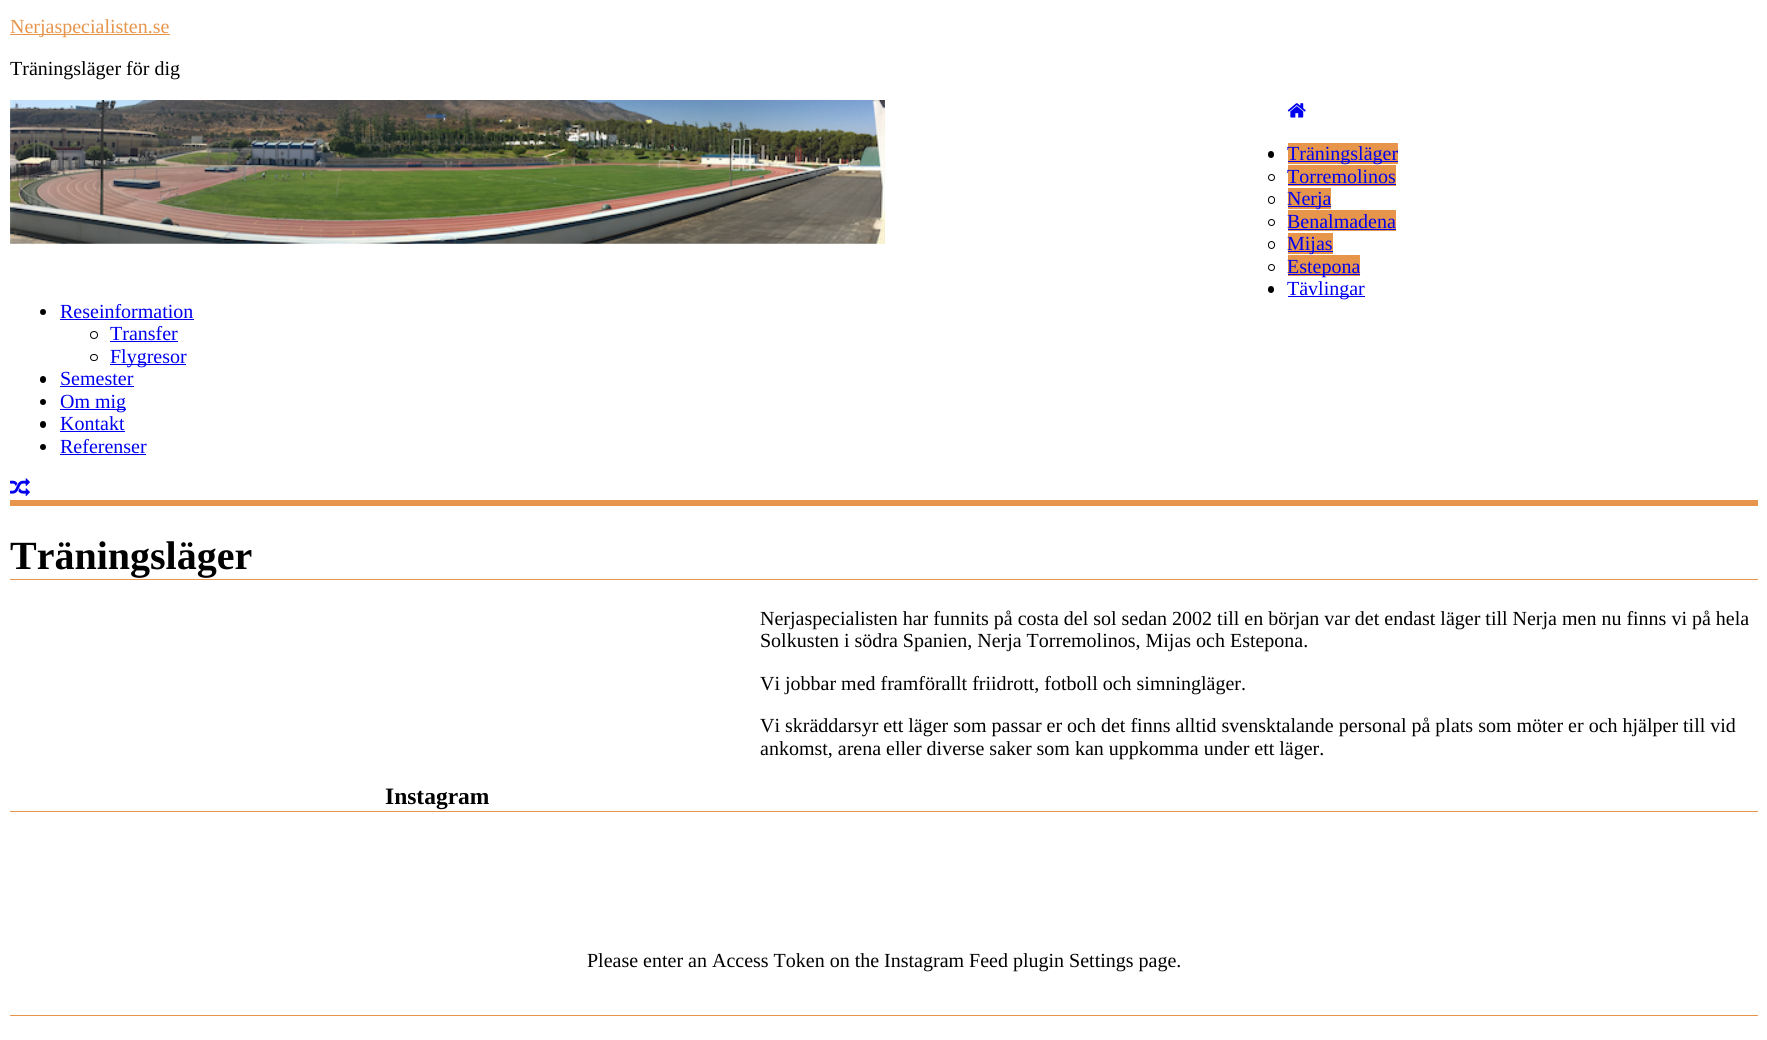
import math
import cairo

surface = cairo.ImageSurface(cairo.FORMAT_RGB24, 1767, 1040)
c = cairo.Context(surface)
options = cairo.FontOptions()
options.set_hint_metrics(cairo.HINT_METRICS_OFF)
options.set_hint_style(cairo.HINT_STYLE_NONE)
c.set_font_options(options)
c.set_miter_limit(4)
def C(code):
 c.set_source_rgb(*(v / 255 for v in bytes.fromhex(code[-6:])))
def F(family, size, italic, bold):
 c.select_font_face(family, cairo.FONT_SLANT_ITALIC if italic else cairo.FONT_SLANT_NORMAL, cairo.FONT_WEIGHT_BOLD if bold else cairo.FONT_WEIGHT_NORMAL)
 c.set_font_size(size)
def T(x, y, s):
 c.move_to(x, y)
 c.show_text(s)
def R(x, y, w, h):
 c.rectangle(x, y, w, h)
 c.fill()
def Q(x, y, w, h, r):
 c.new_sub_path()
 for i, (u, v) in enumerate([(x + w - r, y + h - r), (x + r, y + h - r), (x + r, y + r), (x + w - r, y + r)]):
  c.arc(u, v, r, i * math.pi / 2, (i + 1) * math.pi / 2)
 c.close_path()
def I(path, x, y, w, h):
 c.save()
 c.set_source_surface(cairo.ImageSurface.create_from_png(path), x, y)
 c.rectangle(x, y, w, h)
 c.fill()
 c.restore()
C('ffffff')
c.paint()
C('e8954c')
R(10,34,160,1)
F('Liberation Serif',20,0,0)
T(10,33,'Nerjaspecialisten.se')
C('000000')
T(10,75,'Träningsläger för dig')
I('1.png',10,100,875,144)
C('e8954c')
R(10,500,1748,6)
I('2.png',1287,103,19,15)
C('000000')
Q(1268,151,6,7,3)
c.fill()
C('e8954c')
R(1288,143,110,21)
C('0000ee')
R(1288,161,110,1)
T(1287,160,'Träningsläger')
c.new_path()
c.arc(1271.5,177.5,3,0,2 * math.pi)
C('000000')
c.set_line_width(1)
c.stroke()
C('e8954c')
R(1288,165,108,21)
C('0000ee')
T(1287,183,'Torremolinos')
R(1288,184,108,1)
Q(1268.5,196.5,6,7,3)
C('000000')
c.stroke()
C('e8954c')
R(1288,188,43,21)
C('0000ee')
R(1288,206,43,1)
T(1287,205,'Nerja')
c.new_path()
c.arc(1271.5,222.5,3,0,2 * math.pi)
C('000000')
c.stroke()
C('e8954c')
R(1288,210,108,21)
C('0000ee')
T(1287,228,'Benalmadena')
R(1288,229,108,1)
Q(1268.5,241.5,6,7,3)
C('000000')
c.stroke()
C('e8954c')
R(1288,233,45,21)
C('0000ee')
R(1288,251,45,1)
T(1287,250,'Mijas')
c.new_path()
c.arc(1271.5,267.5,3,0,2 * math.pi)
C('000000')
c.stroke()
C('e8954c')
R(1288,255,72,21)
C('0000ee')
R(1288,274,72,1)
T(1287,273,'Estepona')
C('000000')
Q(1268,286,6,7,3)
c.fill()
C('0000ee')
R(1288,296,77,1)
T(1287,295,'Tävlingar')
C('000000')
c.new_path()
c.arc(43,312,3,0,2 * math.pi)
c.fill()
C('0000ee')
T(60,318,'Reseinformation')
R(60,319,134,1)
c.new_path()
c.arc(94,335,3.5,0,2 * math.pi)
C('000000')
c.stroke()
C('0000ee')
T(110,340,'Transfer')
R(110,341,68,1)
Q(90.5,354.5,7,6,3)
C('000000')
c.stroke()
C('0000ee')
R(110,364,76,1)
T(110,363,'Flygresor')
C('000000')
Q(40,376,6,7,3)
c.fill()
C('0000ee')
T(60,385,'Semester')
R(60,386,74,1)
C('000000')
c.new_path()
c.arc(43,402,3,0,2 * math.pi)
c.fill()
C('0000ee')
R(60,409,66,1)
T(60,408,'Om mig')
C('000000')
Q(40,421,6,7,3)
c.fill()
C('0000ee')
T(60,430,'Kontakt')
R(60,431,65,1)
C('000000')
c.new_path()
c.arc(43,447,3,0,2 * math.pi)
c.fill()
C('0000ee')
T(60,453,'Referenser')
R(60,454,86,1)
I('3.png',10,478,20,18)
C('e8954c')
R(10,579,1748,1)
F('Liberation Serif',40,0,1)
C('000000')
T(10,569,'Träningsläger')
F('Liberation Serif',20,0,0)
T(760,625,'Nerjaspecialisten har funnits på costa del sol sedan 2002 till en början var det endast läger till Nerja men nu finns vi på hela')
T(760,647,'Solkusten i södra Spanien, Nerja Torremolinos, Mijas och Estepona.')
T(760,690,'Vi jobbar med framförallt friidrott, fotboll och simningläger.')
T(760,732,'Vi skräddarsyr ett läger som passar er och det finns alltid svensktalande personal på plats som möter er och hjälper till vid')
T(760,755,'ankomst, arena eller diverse saker som kan uppkomma under ett läger.')
C('e8954c')
R(10,811,1748,1)
F('Liberation Serif',23.5,0,1)
C('000000')
T(385,804,'Instagram')
F('Liberation Serif',20,0,0)
T(587,967,'Please enter an Access Token on the Instagram Feed plugin Settings page.')
C('e8954c')
R(10,1015,1748,1)
surface.write_to_png('o.png')
